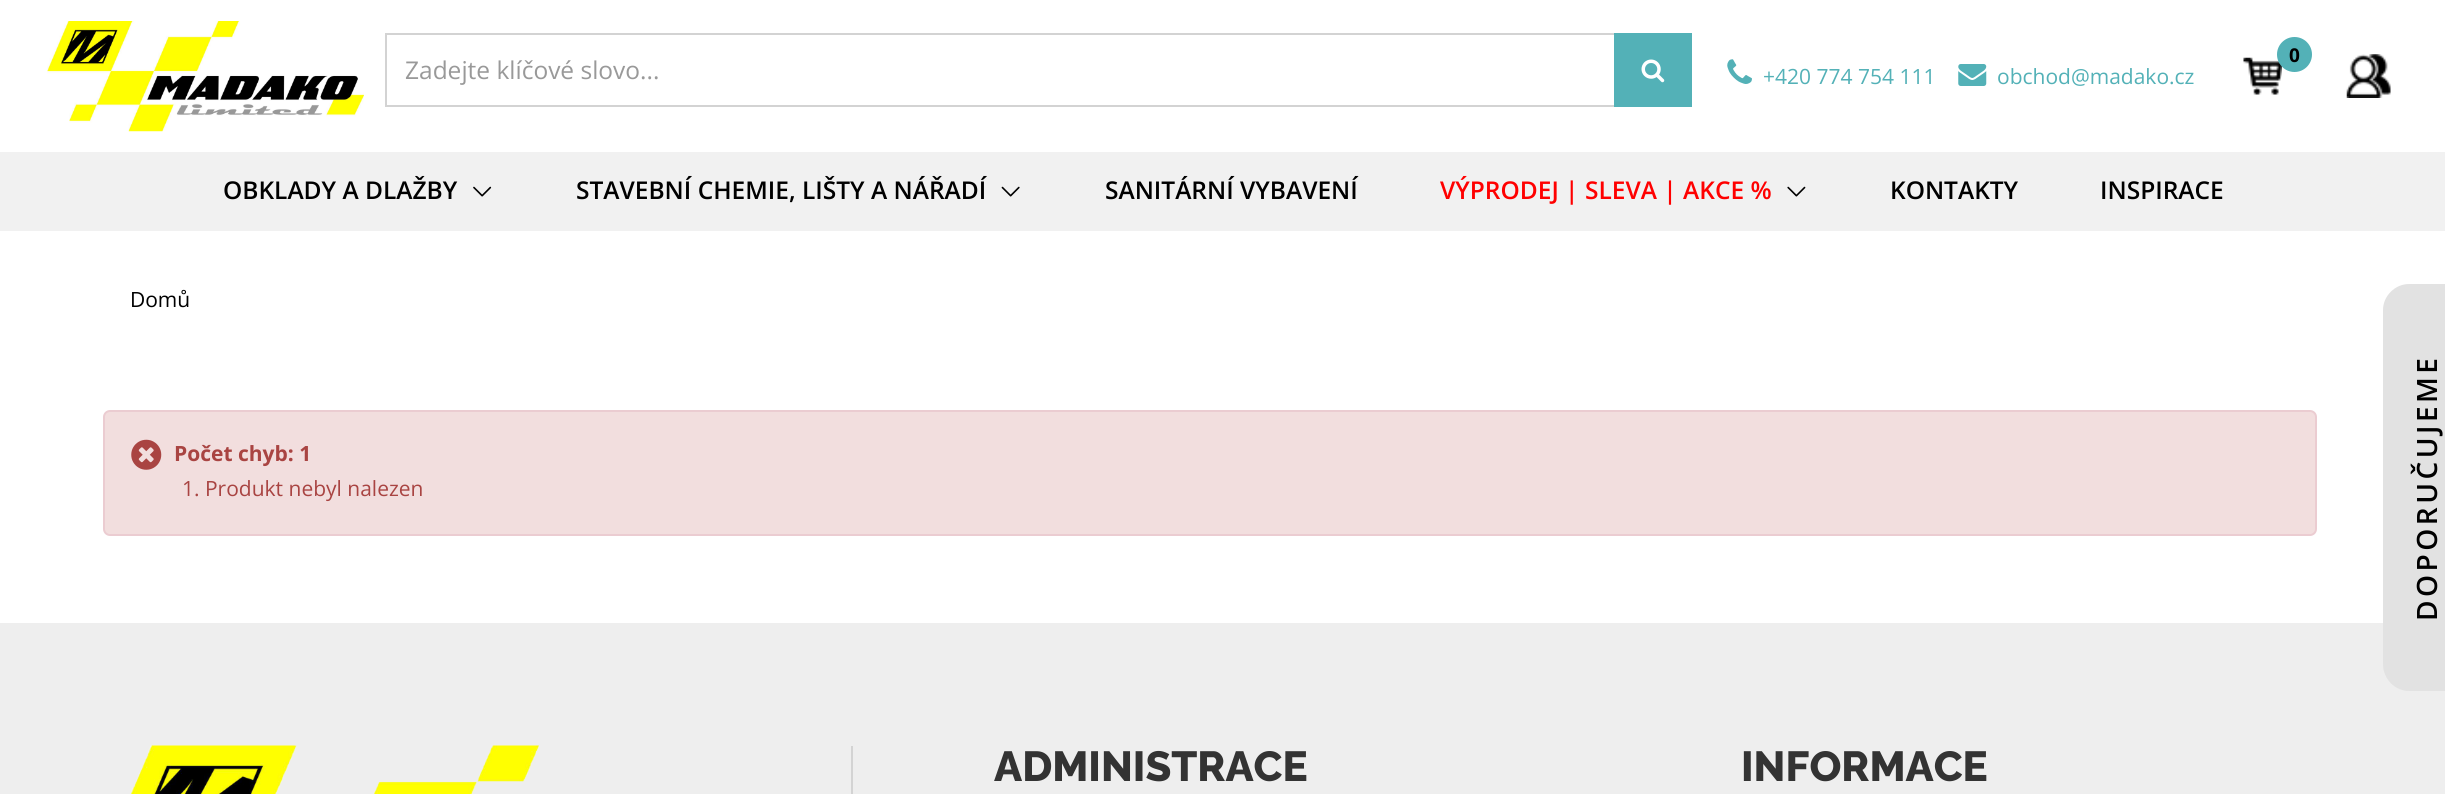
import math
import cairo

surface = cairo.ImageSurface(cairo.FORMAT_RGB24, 2445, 794)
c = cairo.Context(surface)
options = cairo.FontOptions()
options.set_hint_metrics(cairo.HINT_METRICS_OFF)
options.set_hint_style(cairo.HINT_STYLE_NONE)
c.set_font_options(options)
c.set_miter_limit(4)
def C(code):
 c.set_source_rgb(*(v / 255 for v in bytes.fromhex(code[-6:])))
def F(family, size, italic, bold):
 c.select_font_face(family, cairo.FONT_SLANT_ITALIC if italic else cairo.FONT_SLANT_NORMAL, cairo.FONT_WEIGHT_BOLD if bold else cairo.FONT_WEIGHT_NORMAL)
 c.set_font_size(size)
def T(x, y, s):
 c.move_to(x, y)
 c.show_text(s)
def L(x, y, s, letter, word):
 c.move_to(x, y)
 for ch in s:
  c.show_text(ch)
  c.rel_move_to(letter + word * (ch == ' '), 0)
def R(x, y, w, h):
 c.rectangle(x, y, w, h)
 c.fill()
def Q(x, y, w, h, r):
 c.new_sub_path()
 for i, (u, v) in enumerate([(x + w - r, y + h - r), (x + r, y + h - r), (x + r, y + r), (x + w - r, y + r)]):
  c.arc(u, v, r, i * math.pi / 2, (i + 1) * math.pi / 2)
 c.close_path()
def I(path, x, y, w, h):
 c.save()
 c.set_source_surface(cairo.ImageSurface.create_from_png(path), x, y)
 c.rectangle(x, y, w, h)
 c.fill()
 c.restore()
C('ffffff')
c.paint()
I('1.png',47,21,317,111)
c.rectangle(386,34,1305,72)
C('d3d3d3')
c.stroke()
F('Open Sans',24.5,0,0)
C('999999')
T(405,79,'Zadejte klíčové slovo...')
C('53b1b7')
R(1614,33,78,74)
I('2.png',1641,59,24,24)
I('3.png',1727,59,25,25)
F('Open Sans',21,0,0)
T(1763,84,'+420 774 754 111')
I('4.png',1958,64,29,22)
T(1997,84,'obchod@madako.cz')
I('5.png',2243,57,39,38)
c.arc(2294.5,54.5,17.5,0,2 * math.pi)
c.fill()
F('Open Sans',19,0,1)
C('000000')
T(2289,62,'0')
I('6.png',2346,54,45,44)
C('f1f1f1')
R(0,152,2445,79)
F('Open Sans SemiBold',24.5,0,0)
C('000000')
T(223,199,'OBKLADY A DLAŽBY')
I('7.png',473,186,19,11)
T(576,199,'STAVEBNÍ CHEMIE, LIŠTY A NÁŘADÍ')
I('8.png',1001,186,19,11)
T(1105,199,'SANITÁRNÍ VYBAVENÍ')
C('ff0000')
T(1440,199,'VÝPRODEJ | SLEVA | AKCE %')
I('9.png',1787,186,19,11)
C('000000')
T(1890,199,'KONTAKTY')
T(2100,199,'INSPIRACE')
F('Open Sans',21,0,0)
T(130,307,'Domů')
C('f2dede')
Q(104,411,2212,124,6)
c.fill_preserve()
C('ebccd1')
c.stroke()
I('10.png',131,439,31,31)
F('Open Sans',21,0,1)
C('a94442')
T(174,461,'Počet chyb: 1')
F('Open Sans',21,0,0)
T(182,496,'1. Produkt nebyl nalezen')
C('eeeeee')
R(0,623,2445,171)
C('e2e2e2')
c.new_path()
c.move_to(2383,664)
c.line_to(2383,310)
c.curve_to(2383,296,2395,284,2409,284)
c.line_to(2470,284)
c.line_to(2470,691)
c.line_to(2409,691)
c.curve_to(2395,691,2383,679,2383,664)
c.close_path()
c.fill()
F('Open Sans SemiBold',28,0,0)
C('000000')
c.save()
c.translate(2437,621)
c.rotate(-90 * math.pi / 180)
L(0,0,'DOPORUČUJEME',3.5,0)
c.restore()
I('11.png',130,745,409,49)
C('d3d3d3')
R(851,746,2,48)
F('Raleway ExtraBold',42,0,0)
C('333333')
T(994,781,'ADMINISTRACE')
T(1741,781,'INFORMACE')
surface.write_to_png('o.png')
